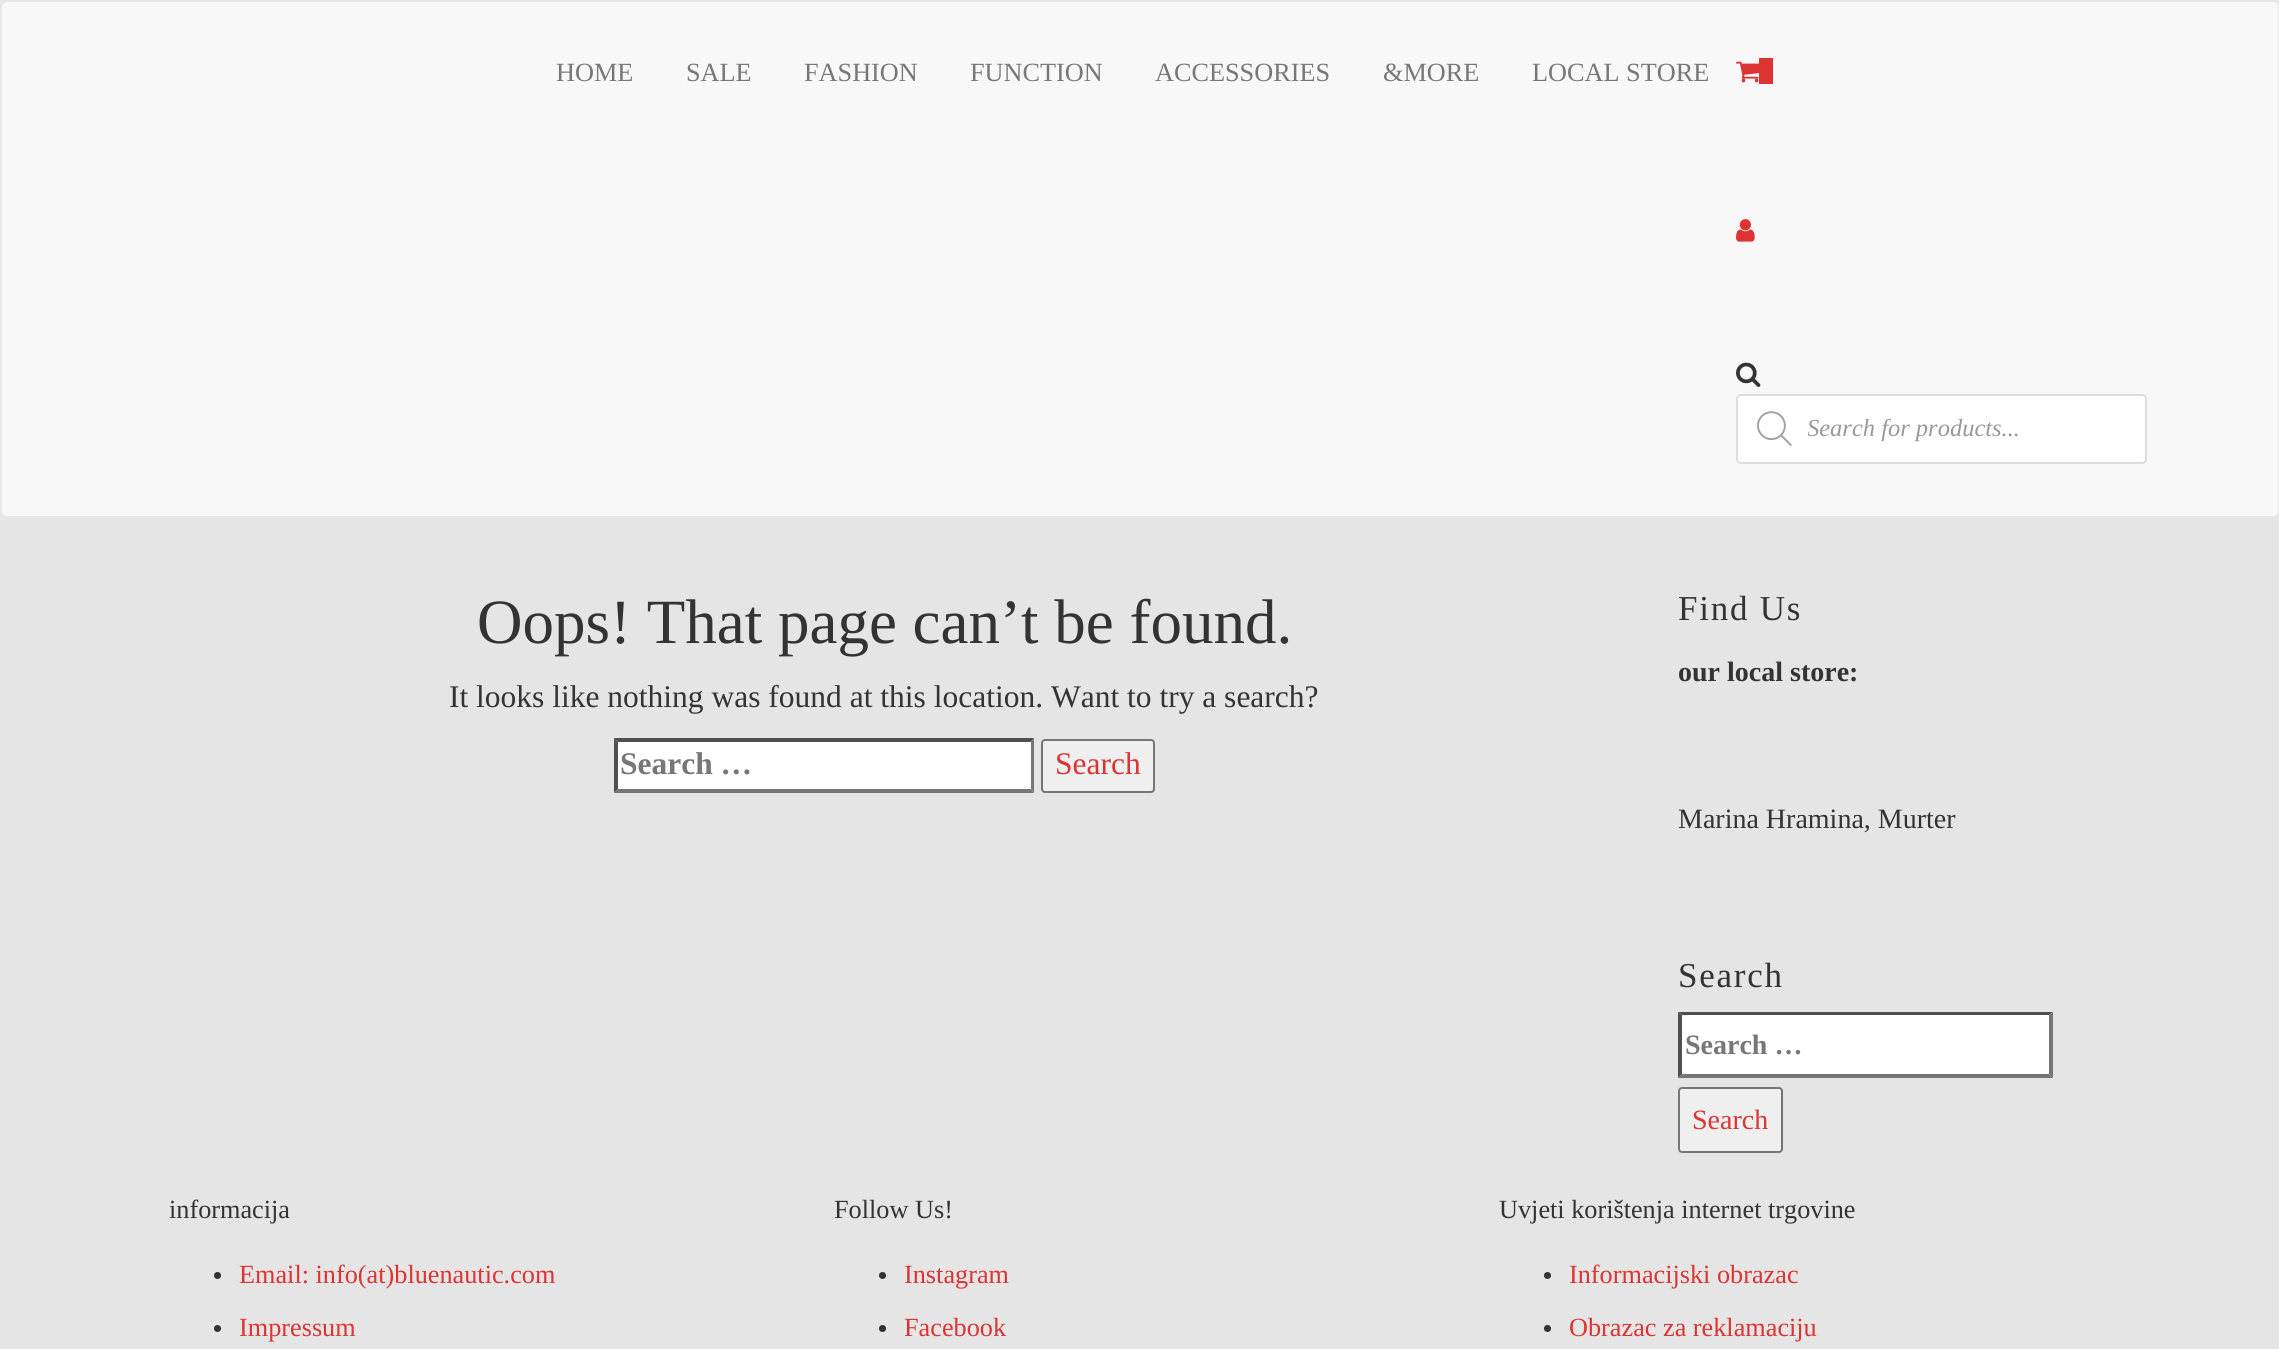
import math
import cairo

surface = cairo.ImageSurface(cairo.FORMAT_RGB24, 2279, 1349)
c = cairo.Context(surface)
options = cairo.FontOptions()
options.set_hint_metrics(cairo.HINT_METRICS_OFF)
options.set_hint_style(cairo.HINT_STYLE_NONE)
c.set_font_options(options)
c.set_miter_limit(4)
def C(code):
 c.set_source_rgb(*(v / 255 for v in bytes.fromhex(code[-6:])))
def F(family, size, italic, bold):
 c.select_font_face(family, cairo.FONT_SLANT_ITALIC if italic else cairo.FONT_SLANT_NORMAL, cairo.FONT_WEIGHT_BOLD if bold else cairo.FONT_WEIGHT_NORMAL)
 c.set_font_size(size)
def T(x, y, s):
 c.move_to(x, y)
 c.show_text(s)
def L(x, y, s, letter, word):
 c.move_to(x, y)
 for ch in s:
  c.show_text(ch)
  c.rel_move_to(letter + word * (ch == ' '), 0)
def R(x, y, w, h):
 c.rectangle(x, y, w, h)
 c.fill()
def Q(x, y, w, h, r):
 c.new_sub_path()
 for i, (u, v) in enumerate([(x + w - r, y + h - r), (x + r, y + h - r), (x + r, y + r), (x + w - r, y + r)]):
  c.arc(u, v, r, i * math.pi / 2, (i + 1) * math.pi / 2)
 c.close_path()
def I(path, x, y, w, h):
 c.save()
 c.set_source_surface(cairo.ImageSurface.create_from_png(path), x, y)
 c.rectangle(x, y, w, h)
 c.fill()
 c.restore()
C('e5e5e5')
c.paint()
C('f8f8f8')
Q(1,1,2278,516,6)
c.fill_preserve()
C('e7e7e7')
c.stroke()
F('Liberation Serif',26.25,0,0)
C('777777')
T(556,81,'HOME')
T(686,81,'SALE')
T(804,81,'FASHION')
T(970,81,'FUNCTION')
T(1155,81,'ACCESSORIES')
T(1383,81,'&MORE')
T(1532,81,'LOCAL STORE')
I('1.png',1736,61,23,22)
C('dd3333')
R(1759,58,14,26)
I('2.png',1736,219,19,23)
I('3.png',1736,362,25,25)
C('ffffff')
Q(1737,395,409,68,4)
c.fill_preserve()
C('dddddd')
c.stroke()
I('4.png',1757,411,35,35)
c.save()
c.rectangle(1808,415,311,28)
c.clip()
F('Liberation Serif',24.5,1,0)
C('999999')
T(1807,436,'Search for products...')
c.restore()
F('Liberation Serif',63,0,0)
C('333333')
T(477,643,'Oops! That page can’t be found.')
F('Liberation Serif',31.5,0,0)
T(449,707,'It looks like nothing was found at this location. Want to try a search?')
C('ffffff')
R(614,739,420,54)
C('4f4f4f')
c.new_path()
c.move_to(614,738)
c.line_to(1034,738)
c.line_to(1031,742)
c.line_to(618,742)
c.close_path()
c.fill()
C('767676')
c.new_path()
c.move_to(1034,738)
c.line_to(1034,793)
c.line_to(1031,789)
c.line_to(1031,742)
c.close_path()
c.fill()
c.new_path()
c.move_to(1034,793)
c.line_to(614,793)
c.line_to(618,789)
c.line_to(1031,789)
c.close_path()
c.fill()
C('4f4f4f')
c.new_path()
c.move_to(614,793)
c.line_to(614,738)
c.line_to(618,742)
c.line_to(618,789)
c.close_path()
c.fill()
F('Liberation Serif',31.5,0,1)
C('777777')
T(620,774,'Search …')
C('efefef')
Q(1042,740,112,52,3)
c.fill_preserve()
C('767676')
c.stroke()
F('Liberation Serif',31.5,0,0)
C('dd3333')
T(1055,774,'Search')
F('Liberation Serif',35,0,0)
C('333333')
L(1678,620,'Find Us',1.75,0)
F('Liberation Serif',28,0,1)
T(1678,681,'our local store:')
F('Liberation Serif',28,0,0)
T(1678,828,'Marina Hramina, Murter')
F('Liberation Serif',35,0,0)
L(1678,987,'Search',1.75,0)
C('ffffff')
R(1678,1012,375,66)
C('4f4f4f')
c.new_path()
c.move_to(1678,1012)
c.line_to(2053,1012)
c.line_to(2049,1015)
c.line_to(1682,1015)
c.close_path()
c.fill()
C('767676')
c.new_path()
c.move_to(2053,1012)
c.line_to(2053,1078)
c.line_to(2049,1074)
c.line_to(2049,1015)
c.close_path()
c.fill()
c.new_path()
c.move_to(2053,1078)
c.line_to(1678,1078)
c.line_to(1682,1074)
c.line_to(2049,1074)
c.close_path()
c.fill()
C('4f4f4f')
c.new_path()
c.move_to(1678,1078)
c.line_to(1678,1012)
c.line_to(1682,1015)
c.line_to(1682,1074)
c.close_path()
c.fill()
F('Liberation Serif',28,0,1)
C('777777')
T(1685,1054,'Search …')
C('efefef')
Q(1679,1088,103,64,3)
c.fill_preserve()
C('767676')
c.stroke()
F('Liberation Serif',28,0,0)
C('dd3333')
T(1692,1129,'Search')
F('Liberation Serif',26.25,0,0)
C('333333')
T(169,1218,'informacija')
c.new_path()
c.arc(217.5,1275.5,3.5,0,2 * math.pi)
c.fill()
C('dd3333')
T(239,1283,'Email: info(at)bluenautic.com')
C('333333')
c.new_path()
c.arc(217.5,1328.5,3.5,0,2 * math.pi)
c.fill()
C('dd3333')
T(239,1336,'Impressum')
C('333333')
T(834,1218,'Follow Us!')
c.new_path()
c.arc(882.5,1275.5,3.5,0,2 * math.pi)
c.fill()
C('dd3333')
T(904,1283,'Instagram')
C('333333')
c.new_path()
c.arc(882.5,1328.5,3.5,0,2 * math.pi)
c.fill()
C('dd3333')
T(904,1336,'Facebook')
C('333333')
T(1499,1218,'Uvjeti korištenja internet trgovine')
c.new_path()
c.arc(1547.5,1275.5,3.5,0,2 * math.pi)
c.fill()
C('dd3333')
T(1569,1283,'Informacijski obrazac')
C('333333')
c.new_path()
c.arc(1547.5,1328.5,3.5,0,2 * math.pi)
c.fill()
C('dd3333')
T(1569,1336,'Obrazac za reklamaciju')
surface.write_to_png('o.png')
